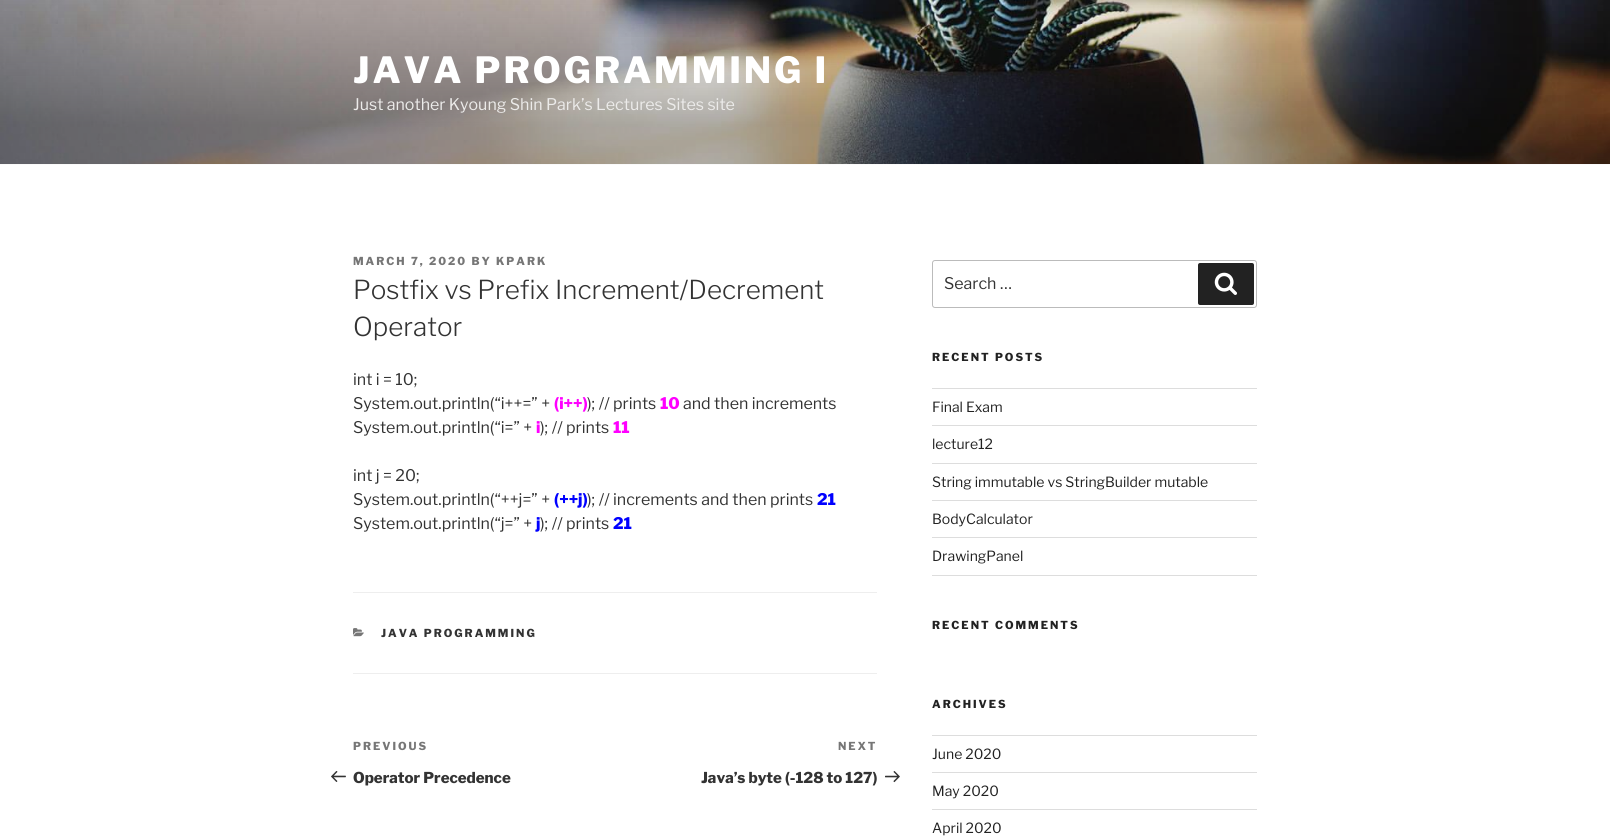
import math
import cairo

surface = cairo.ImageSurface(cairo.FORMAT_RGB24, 1610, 840)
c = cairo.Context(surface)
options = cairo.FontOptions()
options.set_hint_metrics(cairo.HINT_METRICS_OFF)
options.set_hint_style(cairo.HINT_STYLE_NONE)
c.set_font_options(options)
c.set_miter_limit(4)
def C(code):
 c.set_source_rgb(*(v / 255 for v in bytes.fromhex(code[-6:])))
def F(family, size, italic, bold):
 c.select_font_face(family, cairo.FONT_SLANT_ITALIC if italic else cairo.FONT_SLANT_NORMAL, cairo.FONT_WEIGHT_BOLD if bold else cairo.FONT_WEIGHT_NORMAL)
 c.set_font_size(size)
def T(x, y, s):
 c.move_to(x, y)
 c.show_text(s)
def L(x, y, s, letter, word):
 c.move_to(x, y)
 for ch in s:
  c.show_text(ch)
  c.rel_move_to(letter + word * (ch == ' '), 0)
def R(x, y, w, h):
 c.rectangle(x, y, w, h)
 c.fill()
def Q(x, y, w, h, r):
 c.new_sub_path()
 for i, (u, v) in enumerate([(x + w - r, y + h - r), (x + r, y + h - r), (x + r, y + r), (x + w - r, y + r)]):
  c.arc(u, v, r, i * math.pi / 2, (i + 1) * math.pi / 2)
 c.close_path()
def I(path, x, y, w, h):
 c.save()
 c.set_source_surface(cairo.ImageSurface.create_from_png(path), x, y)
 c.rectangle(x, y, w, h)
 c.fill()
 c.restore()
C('ffffff')
c.paint()
C('fafafa')
R(0,164,1610,1)
I('1.png',0,0,1610,164)
F('Libre Franklin ExtraBold',36,0,0)
C('ffffff')
L(353,83,'JAVA PROGRAMMING I',2.9,0)
F('Libre Franklin',16,0,0)
C('ecebea')
T(353,110,'Just another Kyoung Shin Park’s Lectures Sites site')
F('Libre Franklin ExtraBold',11,0,0)
C('767676')
L(353,265,'MARCH 7, 2020 BY KPARK',2,0)
F('Libre Franklin Light',26,0,0)
C('333333')
T(353,299,'Postfix vs Prefix Increment/Decrement')
T(353,336,'Operator')
F('Libre Franklin',16,0,0)
T(353,385,'int i = 10;')
T(353,409,'System.out.println(“i++=” +')
F('Libre Franklin ExtraBold',16,0,0)
C('ff00ff')
T(554,409,'(i++)')
F('Libre Franklin',16,0,0)
C('333333')
T(587,409,'); // prints')
F('Libre Franklin ExtraBold',16,0,0)
C('ff00ff')
T(660,409,'10')
F('Libre Franklin',16,0,0)
C('333333')
T(683,409,'and then increments')
T(353,433,'System.out.println(“i=” +')
F('Libre Franklin ExtraBold',16,0,0)
C('ff00ff')
T(536,433,'i')
F('Libre Franklin',16,0,0)
C('333333')
T(540,433,'); // prints')
F('Libre Franklin ExtraBold',16,0,0)
C('ff00ff')
T(613,433,'11')
F('Libre Franklin',16,0,0)
C('333333')
T(353,481,'int j = 20;')
T(353,505,'System.out.println(“++j=” +')
F('Libre Franklin ExtraBold',16,0,0)
C('0000ff')
T(554,505,'(++j)')
F('Libre Franklin',16,0,0)
C('333333')
T(587,505,'); // increments and then prints')
F('Libre Franklin ExtraBold',16,0,0)
C('0000ff')
T(817,505,'21')
F('Libre Franklin',16,0,0)
C('333333')
T(353,529,'System.out.println(“j=” +')
F('Libre Franklin ExtraBold',16,0,0)
C('0000ff')
T(536,529,'j')
F('Libre Franklin',16,0,0)
C('333333')
T(540,529,'); // prints')
F('Libre Franklin ExtraBold',16,0,0)
C('0000ff')
T(613,529,'21')
C('eeeeee')
R(353,592,524,1)
R(353,673,524,1)
I('2.png',353,628,11,9)
F('Libre Franklin ExtraBold',11,0,0)
C('333333')
L(381,637,'JAVA PROGRAMMING',2,0)
C('767676')
L(353,750,'PREVIOUS',2,0)
I('3.png',331,771,15,11)
F('Libre Franklin ExtraBold',15,0,0)
C('333333')
T(353,783,'Operator Precedence')
F('Libre Franklin ExtraBold',11,0,0)
C('767676')
L(838,750,'NEXT',2,0)
F('Libre Franklin ExtraBold',15,0,0)
C('333333')
T(701,783,'Java’s byte (-128 to 127)')
I('4.png',885,771,15,12)
Q(932.5,260.5,324,47,2.5)
C('bbbbbb')
c.set_line_width(1)
c.stroke()
F('Libre Franklin',16,0,0)
C('333333')
T(944,289,'Search …')
C('222222')
Q(1198,263,56,42,2)
c.fill()
I('5.png',1214,272,23,23)
F('Libre Franklin ExtraBold',11,0,0)
L(932,361,'RECENT POSTS',2,0)
C('dddddd')
R(932,388,325,1)
R(932,425,325,1)
F('Libre Franklin',14,0,0)
C('222222')
T(932,412,'Final Exam')
C('dddddd')
R(932,463,325,1)
C('222222')
T(932,449,'lecture12')
C('dddddd')
R(932,500,325,1)
C('222222')
T(932,487,'String immutable vs StringBuilder mutable')
C('dddddd')
R(932,537,325,1)
C('222222')
T(932,524,'BodyCalculator')
C('dddddd')
R(932,575,325,1)
C('222222')
T(932,561,'DrawingPanel')
F('Libre Franklin ExtraBold',11,0,0)
L(932,629,'RECENT COMMENTS',2,0)
L(932,708,'ARCHIVES',2,0)
C('dddddd')
R(932,735,325,1)
R(932,772,325,1)
F('Libre Franklin',14,0,0)
C('222222')
T(932,759,'June 2020')
C('dddddd')
R(932,809,325,1)
C('222222')
T(932,796,'May 2020')
T(932,833,'April 2020')
surface.write_to_png('o.png')
